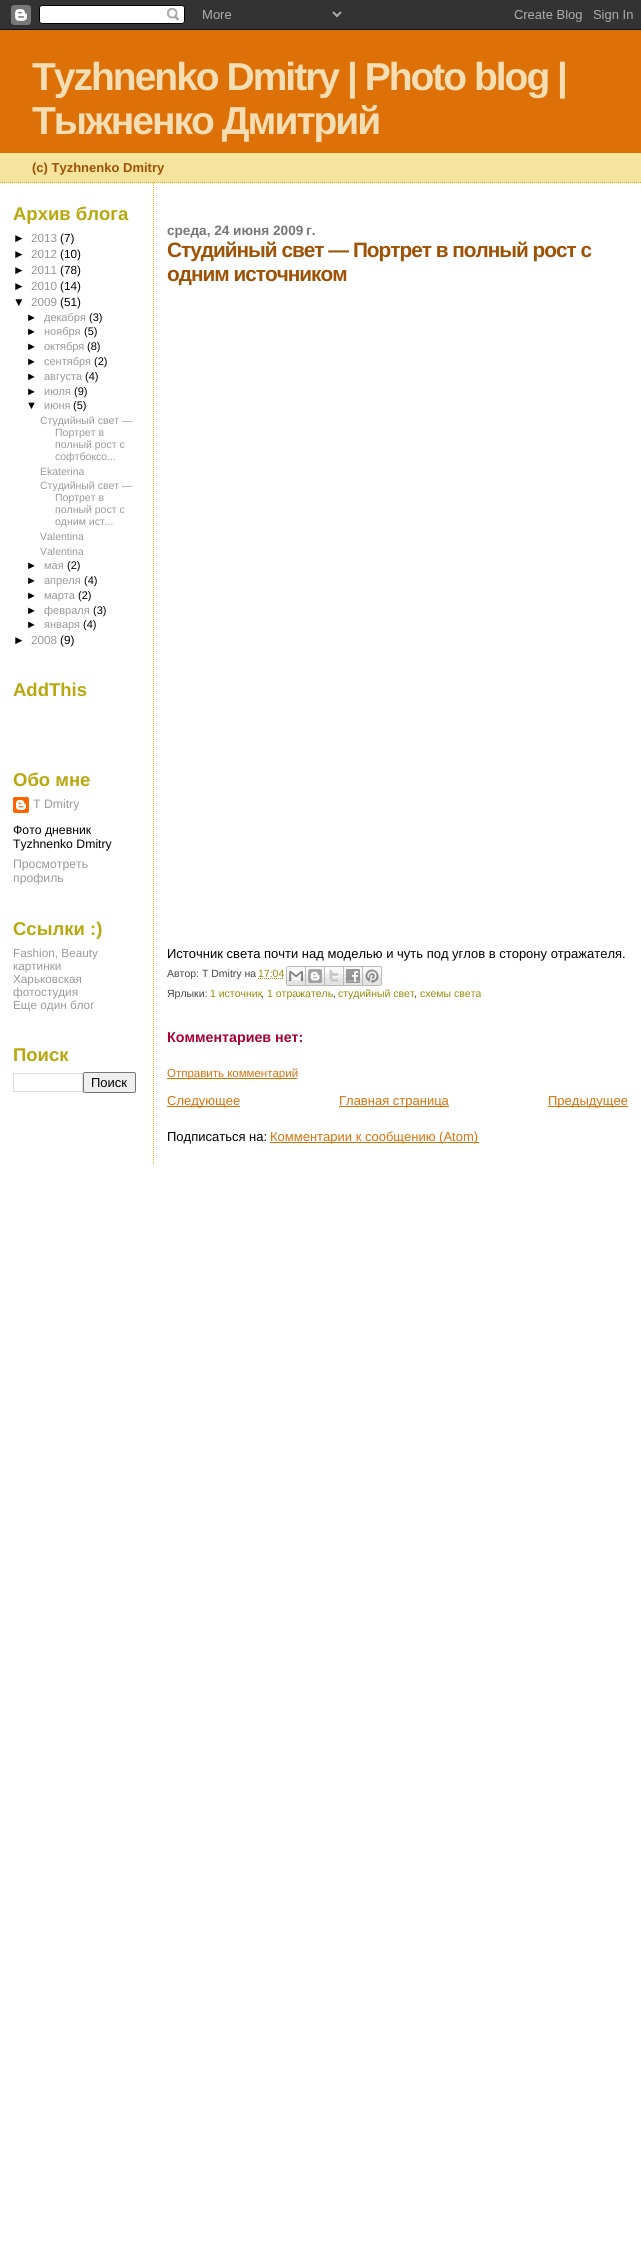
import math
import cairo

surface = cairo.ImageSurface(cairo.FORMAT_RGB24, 641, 2268)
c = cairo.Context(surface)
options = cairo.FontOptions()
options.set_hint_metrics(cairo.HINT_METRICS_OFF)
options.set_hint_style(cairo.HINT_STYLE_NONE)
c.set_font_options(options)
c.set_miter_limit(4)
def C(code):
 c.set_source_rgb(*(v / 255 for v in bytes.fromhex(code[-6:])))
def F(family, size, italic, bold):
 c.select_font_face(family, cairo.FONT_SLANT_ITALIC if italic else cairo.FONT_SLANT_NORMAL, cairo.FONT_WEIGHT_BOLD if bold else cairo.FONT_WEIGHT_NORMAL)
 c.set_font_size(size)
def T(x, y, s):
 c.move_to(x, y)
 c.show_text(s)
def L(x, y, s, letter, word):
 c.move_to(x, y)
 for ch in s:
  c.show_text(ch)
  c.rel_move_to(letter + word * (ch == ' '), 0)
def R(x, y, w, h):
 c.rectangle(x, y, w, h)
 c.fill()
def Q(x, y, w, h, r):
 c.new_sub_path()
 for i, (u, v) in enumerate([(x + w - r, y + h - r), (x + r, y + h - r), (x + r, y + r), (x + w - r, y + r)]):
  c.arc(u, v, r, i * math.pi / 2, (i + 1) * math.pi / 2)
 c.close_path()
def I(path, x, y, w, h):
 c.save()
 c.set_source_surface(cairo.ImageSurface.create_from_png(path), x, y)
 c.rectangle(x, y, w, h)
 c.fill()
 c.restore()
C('ffffff')
c.paint()
I('1.png',0,0,641,30)
C('f5e39e')
R(0,153,641,30)
c.new_path()
c.move_to(0,182.5)
c.line_to(641,182.5)
C('e0ad12')
c.set_line_width(1)
c.set_dash([1,1])
c.stroke()
C('de7008')
R(0,30,641,123)
F('Liberation Sans',39,0,1)
C('f5deb3')
L(32,90,'Tyzhnenko Dmitry | Photo blog |',-2,0)
L(32,134,'Тыжненко Дмитрий',-2,0)
F('Liberation Sans',13,0,1)
C('9e5205')
T(32,172,'(c) Tyzhnenko Dmitry')
F('Liberation Sans',18.5,0,1)
C('b8a80d')
T(13,220,'Архив блога')
F('Liberation Sans',11.75,0,0)
C('000000')
T(13,242,'►')
C('999999')
T(31,242,'2013')
C('000000')
T(60,242,'(7)')
T(13,258,'►')
C('999999')
T(31,258,'2012')
C('000000')
T(60,258,'(10)')
T(13,274,'►')
C('999999')
T(31,274,'2011')
C('000000')
T(60,274,'(78)')
T(13,290,'►')
C('999999')
T(31,290,'2010')
C('000000')
T(60,290,'(14)')
T(13,306,'▼')
C('999999')
T(31,306,'2009')
C('000000')
T(60,306,'(51)')
F('Liberation Sans',11,0,0)
T(26,321,'►')
C('999999')
T(44,321,'декабря')
C('000000')
T(89,321,'(3)')
T(26,335,'►')
C('999999')
T(44,335,'ноября')
C('000000')
T(84,335,'(5)')
T(26,350,'►')
C('999999')
T(44,350,'октября')
C('000000')
T(87,350,'(8)')
T(26,365,'►')
C('999999')
T(44,365,'сентября')
C('000000')
T(94,365,'(2)')
T(26,380,'►')
C('999999')
T(44,380,'августа')
C('000000')
T(85,380,'(4)')
T(26,395,'►')
C('999999')
T(44,395,'июля')
C('000000')
T(74,395,'(9)')
T(26,409,'▼')
C('999999')
T(44,409,'июня')
C('000000')
T(73,409,'(5)')
F('Liberation Sans',10.5,0,0)
C('999999')
T(40,424,'Студийный свет —')
T(55,436,'Портрет в')
T(55,448,'полный рост с')
T(55,460,'софтбоксо...')
T(40,475,'Ekaterina')
T(40,489,'Студийный свет —')
T(55,501,'Портрет в')
T(55,513,'полный рост с')
T(55,525,'одним ист...')
T(40,540,'Valentina')
T(40,555,'Valentina')
F('Liberation Sans',11,0,0)
C('000000')
T(26,569,'►')
C('999999')
T(44,569,'мая')
C('000000')
T(67,569,'(2)')
T(26,584,'►')
C('999999')
T(44,584,'апреля')
C('000000')
T(84,584,'(4)')
T(26,599,'►')
C('999999')
T(44,599,'марта')
C('000000')
T(78,599,'(2)')
T(26,614,'►')
C('999999')
T(44,614,'февраля')
C('000000')
T(93,614,'(3)')
T(26,628,'►')
C('999999')
T(44,628,'января')
C('000000')
T(83,628,'(4)')
F('Liberation Sans',11.75,0,0)
T(13,644,'►')
C('999999')
T(31,644,'2008')
C('000000')
T(60,644,'(9)')
F('Liberation Sans',18.5,0,1)
C('b8a80d')
T(13,696,'AddThis')
T(13,786,'Обо мне')
I('2.png',13,797,16,16)
F('Liberation Sans',12.25,0,0)
C('999999')
T(33,808,'T Dmitry')
C('000000')
T(13,834,'Фото дневник')
T(13,848,'Tyzhnenko Dmitry')
C('999999')
T(13,868,'Просмотреть')
T(13,882,'профиль')
F('Liberation Sans',18.5,0,1)
C('b8a80d')
T(13,935,'Ссылки :)')
F('Liberation Sans',11.75,0,0)
C('999999')
T(13,957,'Fashion, Beauty')
T(13,970,'картинки')
T(13,983,'Харьковская')
T(13,996,'фотостудия')
T(13,1009,'Еще один блог')
F('Liberation Sans',18.5,0,1)
C('b8a80d')
T(13,1061,'Поиск')
c.rectangle(13.5,1073.5,69,18)
C('dddddd')
c.set_dash([])
c.stroke()
C('efefef')
Q(83.5,1072.5,52,20,1.5)
c.fill_preserve()
C('767676')
c.stroke()
F('Liberation Sans',13,0,0)
C('000000')
T(91,1087,'Поиск')
c.new_path()
c.move_to(153.5,183)
c.line_to(153.5,1164)
C('e0ad12')
c.set_dash([1,1])
c.stroke()
F('Liberation Sans',13.6,0,1)
C('777777')
T(167,235,'среда, 24 июня 2009 г.')
F('Liberation Sans',20.8,0,1)
C('9e5205')
L(167,257,'Студийный свет — Портрет в полный рост с',-1,0)
L(167,281,'одним источником',-1,0)
F('Liberation Sans',13,0,0)
C('000000')
T(167,958,'Источник света почти над моделью и чуть под углов в сторону отражателя.')
F('Liberation Sans',10.5,0,0)
C('444444')
T(167,977,'Автор: T Dmitry на')
C('968a0a')
T(258,977,'17:04')
c.new_path()
c.move_to(258,978.5)
c.line_to(284,978.5)
c.stroke()
I('3.png',286,966,20,20)
I('4.png',306,966,19,20)
I('5.png',325,966,19,20)
I('6.png',344,966,19,20)
I('7.png',363,966,19,20)
C('444444')
T(167,997,'Ярлыки:')
C('968a0a')
T(210,997,'1 источник')
C('444444')
T(261,997,',')
C('968a0a')
T(267,997,'1 отражатель')
C('444444')
T(333,997,',')
C('968a0a')
T(338,997,'студийный свет')
C('444444')
T(414,997,',')
C('968a0a')
T(420,997,'схемы света')
F('Liberation Sans',14.25,0,1)
C('aa0033')
T(167,1042,'Комментариев нет:')
C('de7008')
R(167,1078,130,1)
F('Liberation Sans',11.5,0,0)
T(167,1077,'Отправить комментарий')
R(167,1106,73,1)
F('Liberation Sans',13,0,0)
T(167,1105,'Следующее')
R(339,1106,110,1)
T(339,1105,'Главная страница')
R(548,1106,80,1)
T(548,1105,'Предыдущее')
C('000000')
T(167,1141,'Подписаться на:')
C('de7008')
R(270,1142,209,1)
T(270,1141,'Комментарии к сообщению (Atom)')
surface.write_to_png('o.png')
